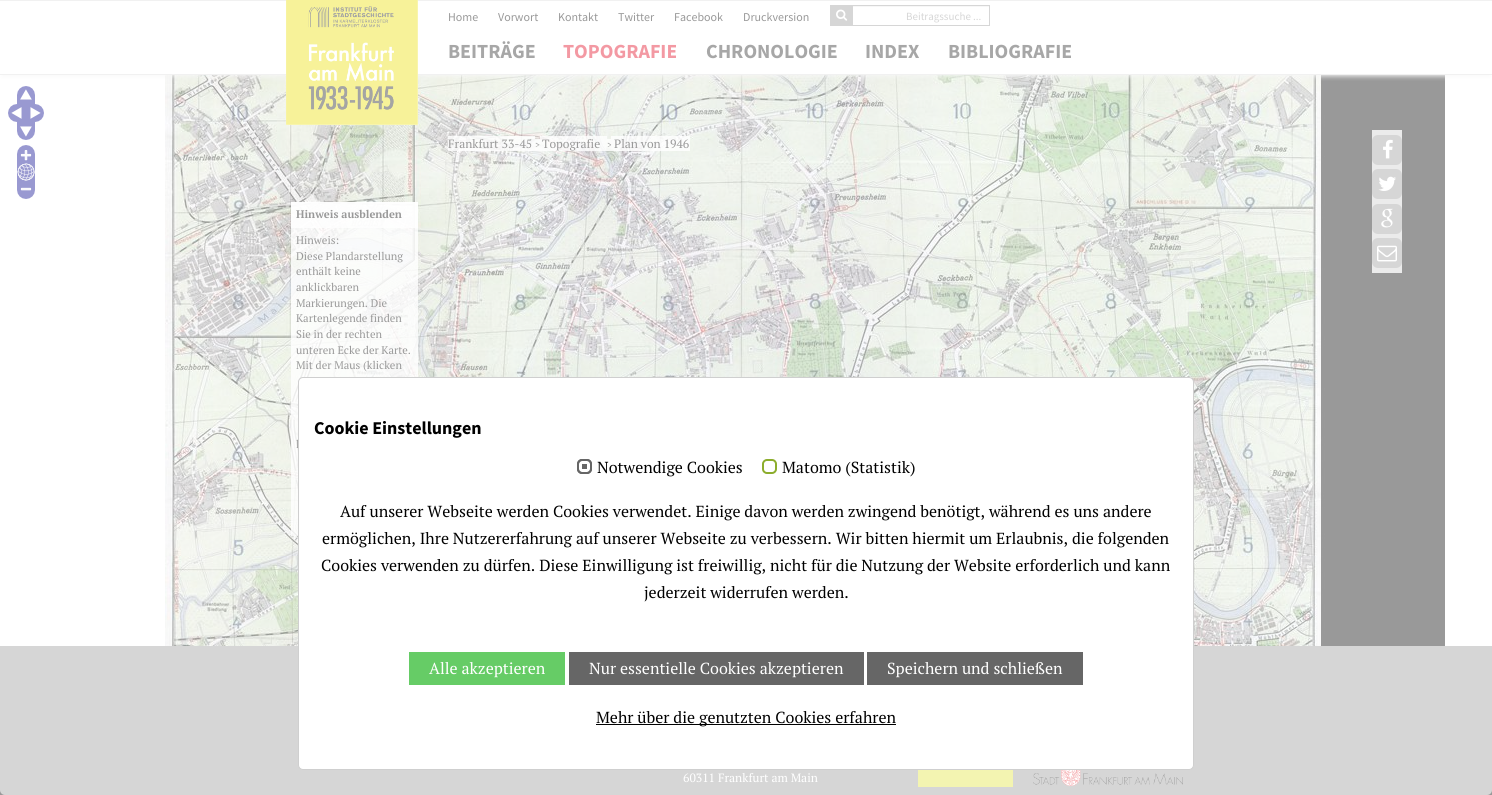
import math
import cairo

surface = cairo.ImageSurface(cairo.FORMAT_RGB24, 1492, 795)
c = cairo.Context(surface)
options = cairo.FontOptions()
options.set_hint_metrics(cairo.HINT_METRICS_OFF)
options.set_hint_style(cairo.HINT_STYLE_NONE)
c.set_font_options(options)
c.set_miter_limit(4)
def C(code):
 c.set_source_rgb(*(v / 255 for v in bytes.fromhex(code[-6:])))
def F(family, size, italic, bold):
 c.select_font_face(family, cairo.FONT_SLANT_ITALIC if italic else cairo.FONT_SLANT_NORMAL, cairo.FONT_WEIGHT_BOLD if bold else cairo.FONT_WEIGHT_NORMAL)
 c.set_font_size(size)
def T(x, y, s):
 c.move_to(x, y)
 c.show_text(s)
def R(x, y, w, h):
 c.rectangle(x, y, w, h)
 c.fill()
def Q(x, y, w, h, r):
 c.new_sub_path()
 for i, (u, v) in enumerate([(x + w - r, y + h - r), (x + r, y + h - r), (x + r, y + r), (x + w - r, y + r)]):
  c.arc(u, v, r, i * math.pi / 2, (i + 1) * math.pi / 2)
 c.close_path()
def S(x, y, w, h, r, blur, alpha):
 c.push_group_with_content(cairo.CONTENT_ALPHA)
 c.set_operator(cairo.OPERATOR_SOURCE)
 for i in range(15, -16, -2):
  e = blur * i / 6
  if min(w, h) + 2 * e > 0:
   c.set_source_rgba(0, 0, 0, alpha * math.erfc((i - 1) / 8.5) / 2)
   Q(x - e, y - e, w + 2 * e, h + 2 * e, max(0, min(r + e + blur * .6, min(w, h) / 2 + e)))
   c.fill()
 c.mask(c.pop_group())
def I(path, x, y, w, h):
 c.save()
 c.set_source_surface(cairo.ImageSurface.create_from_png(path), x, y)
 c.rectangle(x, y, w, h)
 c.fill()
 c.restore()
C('ffffff')
c.paint()
I('10.png',165,75,256,225)
I('11.png',421,75,256,225)
I('12.png',677,75,256,225)
I('13.png',933,75,256,225)
I('14.png',1189,75,256,225)
c.save()
c.rectangle(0,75,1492,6)
c.clip()
C('ececec')
S(3,7,1486,69,0,2.5,1)
c.restore()
C('dddddd')
R(0,0,1492,1)
R(0,74,1492,1)
I('1.png',286,0,132,125)
F('Source Sans Pro',12,0,0)
C('000000')
T(448,21,'Home')
T(498,21,'Vorwort')
T(558,21,'Kontakt')
T(618,21,'Twitter')
T(674,21,'Facebook')
T(743,21,'Druckversion')
C('999999')
R(830,5,22,21)
I('2.png',836,9,12,12)
C('ececec')
R(853,6,136,1)
c.rectangle(852.5,5.5,137,20)
C('999999')
c.set_line_width(1)
c.stroke()
F('Source Sans Pro',11,0,0)
T(906,20,'Beitragssuche ...')
F('Source Sans Pro',20,0,1)
C('222222')
T(448,58,'BEITRÄGE')
C('e2001a')
T(563,58,'TOPOGRAFIE')
C('222222')
T(706,58,'CHRONOLOGIE')
T(865,58,'INDEX')
T(948,58,'BIBLIOGRAFIE')
I('3.png',17,86,18,18)
I('4.png',8,104,18,18)
I('5.png',26,104,18,18)
I('6.png',17,122,18,18)
I('7.png',17,145,18,18)
I('8.png',17,163,18,18)
I('9.png',17,181,18,18)
I('15.png',165,300,256,256)
I('16.png',421,300,256,77)
I('17.png',677,300,256,77)
I('18.png',933,300,256,77)
I('19.png',1189,300,256,256)
I('20.png',165,556,133,90)
I('21.png',1194,556,251,90)
c.set_source_rgba(1,1,1,0.8)
R(448,136,87,15)
F('PT Serif',12,0,0)
C('000000')
T(448,148,'Frankfurt 33-45')
c.set_source_rgba(1,1,1,0.8)
R(535,139,5,12)
F('PT Serif',9,0,0)
C('000000')
T(535,148,'>')
c.set_source_rgba(1,1,1,0.8)
R(540,136,67,15)
F('PT Serif',12,0,0)
C('000000')
T(542,148,'Topografie')
c.set_source_rgba(1,1,1,0.8)
R(607,139,4,12)
F('PT Serif',9,0,0)
C('000000')
T(607,148,'>')
c.set_source_rgba(1,1,1,0.8)
R(614,136,76,15)
F('PT Serif',12,0,0)
C('000000')
T(614,148,'Plan von 1946')
c.set_source_rgba(1,1,1,0.8)
R(611,136,3,15)
R(291,202,127,334)
R(291,202,127,26)
F('PT Serif',11,0,1)
C('000000')
T(296,218,'Hinweis ausblenden')
F('PT Serif',11,0,0)
T(296,244,'Hinweis:')
T(296,260,'Diese Plandarstellung')
T(296,275,'enthält keine')
T(296,291,'anklickbaren')
T(296,307,'Markierungen. Die')
T(296,322,'Kartenlegende finden')
T(296,338,'Sie in der rechten')
T(296,354,'unteren Ecke der Karte.')
T(296,369,'Mit der Maus (klicken')
T(296,448,'l')
C('cccccc')
R(1372,130,30,143)
C('999999')
Q(1372,135,30,30,6)
c.fill()
I('22.png',1383,139,10,20)
Q(1372,169,30,30,6)
c.fill()
I('23.png',1378,176,18,15)
Q(1372,204,30,30,6)
c.fill()
I('24.png',1381,208,12,20)
Q(1372,238,30,30,6)
c.fill()
I('25.png',1377,245,20,17)
R(0,646,1492,149)
F('PT Serif',12,0,0)
C('ffffff')
T(683,782,'60311 Frankfurt am Main')
I('26.png',918,770,95,17)
I('27.png',1033,770,150,16)
c.set_source_rgba(1,1,1,0.6)
Q(0,-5,1492,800,5)
c.fill()
C('ffffff')
Q(298.5,377.5,895,392,4.5)
c.fill_preserve()
C('cfcfcf')
c.stroke()
F('Source Sans Pro',18,0,1)
C('000000')
T(314,434,'Cookie Einstellungen')
C('666666')
Q(577,459,15,15,5)
c.fill()
Q(580.5,462.5,8,8,1.5)
C('ffffff')
c.set_line_width(3)
c.stroke()
Q(578,460,13,13,4)
C('666666')
c.set_line_width(2)
c.stroke()
F('PT Serif',16,0,0)
C('000000')
T(597,473,'Notwendige Cookies')
Q(763,460,13,13,4)
C('8cad2d')
c.stroke()
C('000000')
T(782,473,'Matomo (Statistik)')
T(340,517,'Auf unserer Webseite werden Cookies verwendet. Einige davon werden zwingend benötigt, während es uns andere')
T(322,544,'ermöglichen, Ihre Nutzererfahrung auf unserer Webseite zu verbessern. Wir bitten hiermit um Erlaubnis, die folgenden')
T(321,571,'Cookies verwenden zu dürfen. Diese Einwilligung ist freiwillig, nicht für die Nutzung der Website erforderlich und kann')
T(644,598,'jederzeit widerrufen werden.')
C('66cc66')
R(409,652,156,33)
C('ffffff')
T(429,674,'Alle akzeptieren')
C('666666')
R(569,652,295,33)
C('ffffff')
T(589,674,'Nur essentielle Cookies akzeptieren')
C('666666')
R(867,652,216,33)
C('ffffff')
T(887,674,'Speichern und schließen')
C('000000')
R(596,724,300,1)
T(596,723,'Mehr über die genutzten Cookies erfahren')
surface.write_to_png('o.png')
